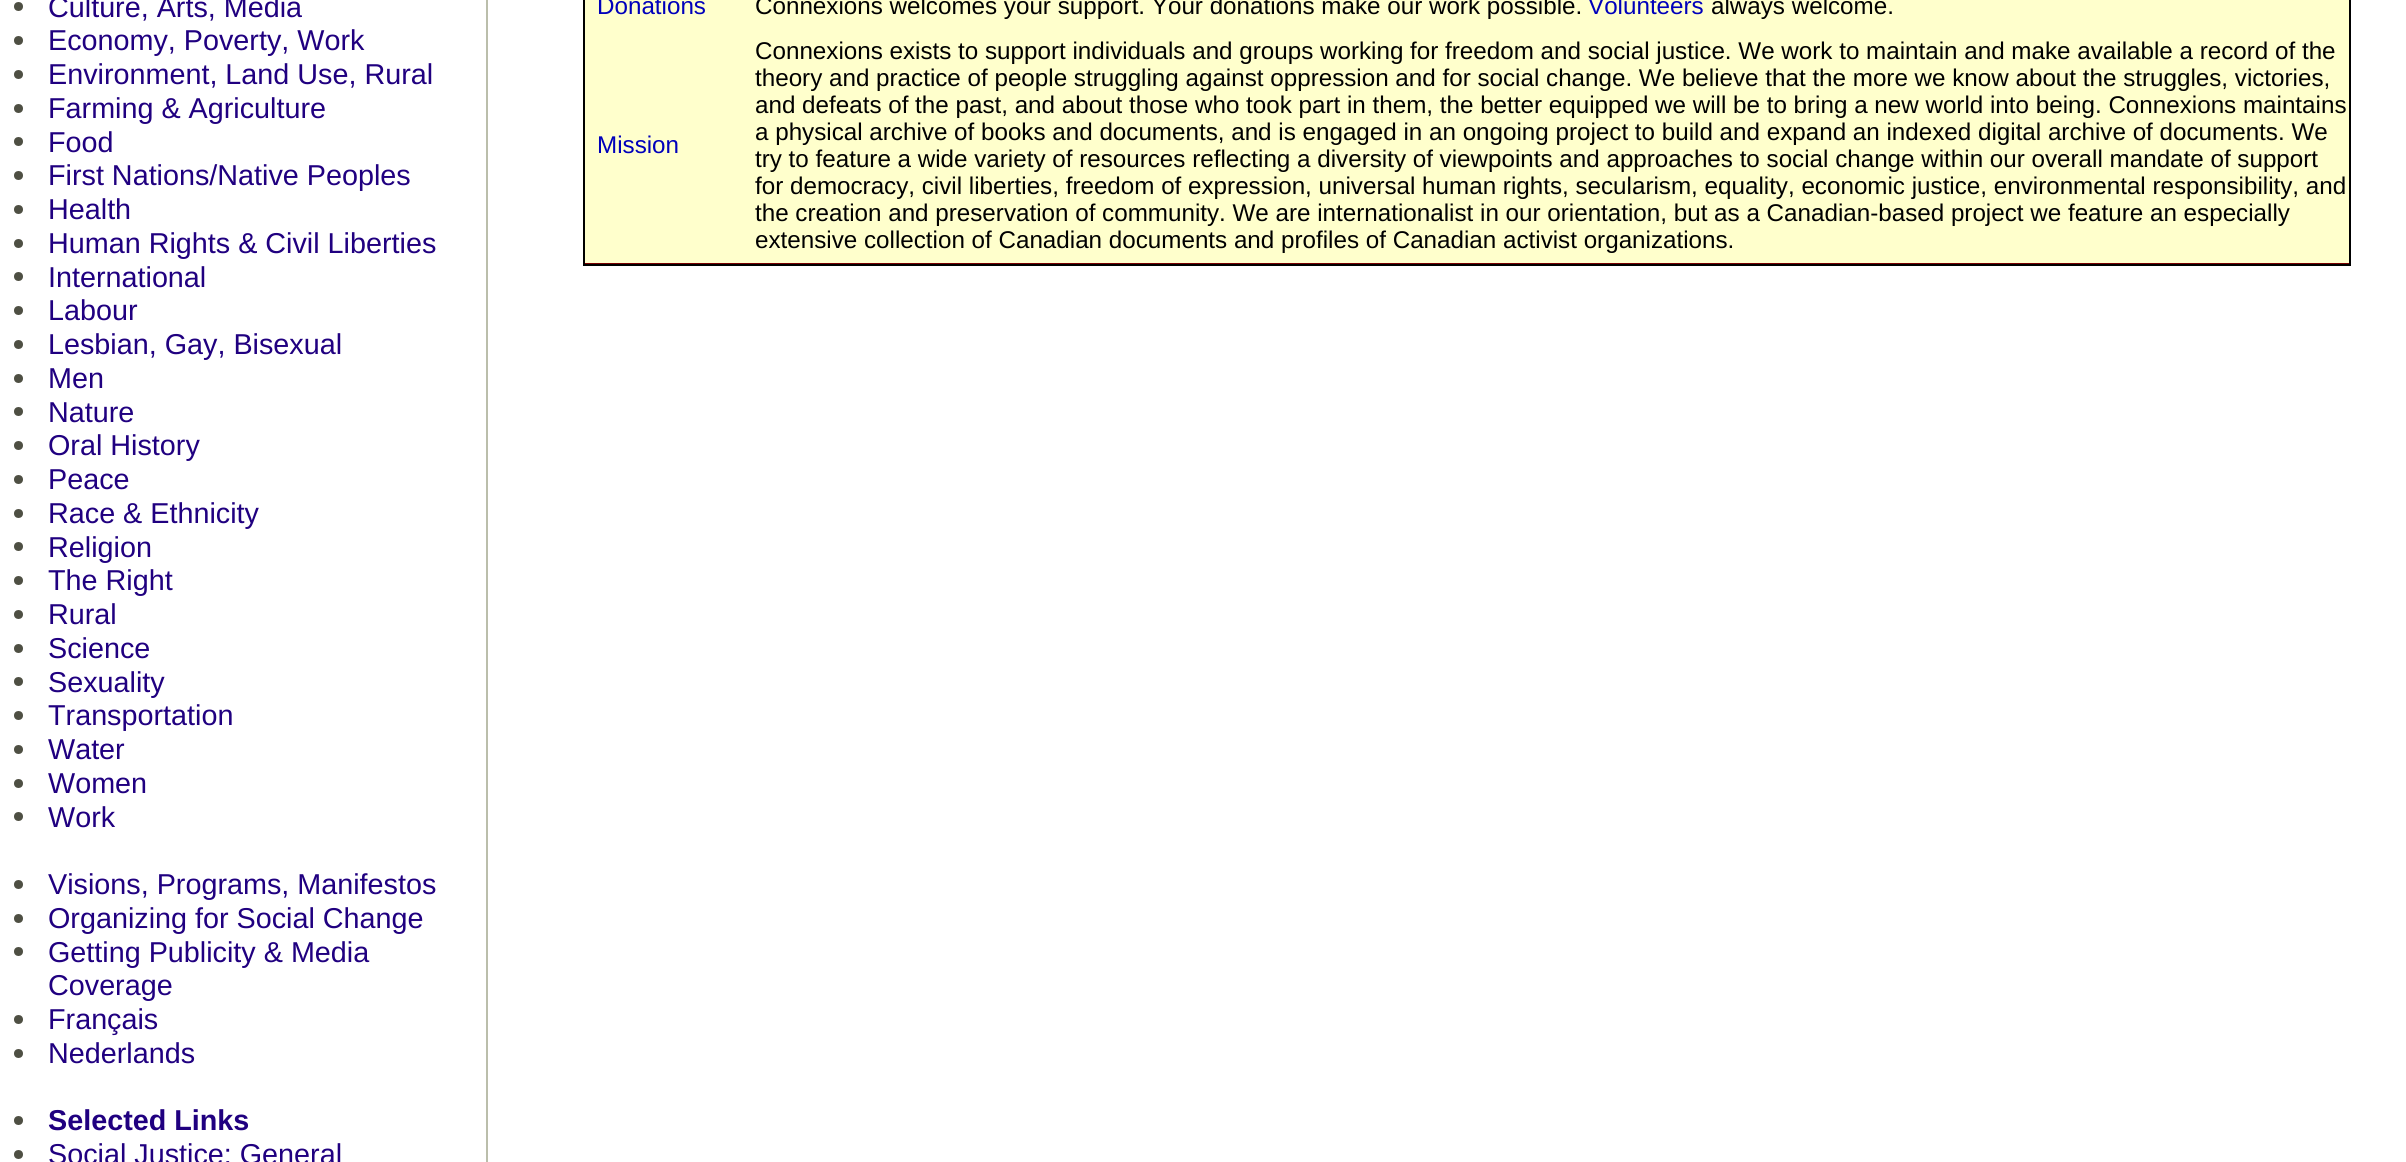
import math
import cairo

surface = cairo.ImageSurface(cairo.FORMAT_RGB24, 2406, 1162)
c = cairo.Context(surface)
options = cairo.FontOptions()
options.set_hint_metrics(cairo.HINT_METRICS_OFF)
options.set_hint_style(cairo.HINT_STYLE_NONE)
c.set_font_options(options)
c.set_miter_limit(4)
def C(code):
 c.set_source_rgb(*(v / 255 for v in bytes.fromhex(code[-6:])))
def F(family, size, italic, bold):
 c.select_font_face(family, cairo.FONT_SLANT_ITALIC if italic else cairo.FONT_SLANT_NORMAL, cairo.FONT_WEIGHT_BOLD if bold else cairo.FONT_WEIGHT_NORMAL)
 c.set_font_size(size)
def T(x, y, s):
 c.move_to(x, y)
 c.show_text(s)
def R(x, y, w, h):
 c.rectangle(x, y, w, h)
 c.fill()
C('ffffff')
c.paint()
C('bbbeab')
R(486,0,2,1162)
C('4e4f43')
c.arc(18.5,6.5,4.5,0,2 * math.pi)
c.fill()
F('Liberation Sans',28.75,0,0)
C('200080')
T(48,17,'Culture, Arts, Media')
C('4e4f43')
c.new_path()
c.arc(18.5,40.5,4.5,0,2 * math.pi)
c.fill()
C('200080')
T(48,50,'Economy, Poverty, Work')
C('4e4f43')
c.new_path()
c.arc(18.5,74.5,4.5,0,2 * math.pi)
c.fill()
C('200080')
T(48,84,'Environment, Land Use, Rural')
C('4e4f43')
c.new_path()
c.arc(18.5,108.5,4.5,0,2 * math.pi)
c.fill()
C('200080')
T(48,118,'Farming & Agriculture')
C('4e4f43')
c.new_path()
c.arc(18.5,141.5,4.5,0,2 * math.pi)
c.fill()
C('200080')
T(48,152,'Food')
C('4e4f43')
c.new_path()
c.arc(18.5,175.5,4.5,0,2 * math.pi)
c.fill()
C('200080')
T(48,185,'First Nations/Native Peoples')
C('4e4f43')
c.new_path()
c.arc(18.5,209.5,4.5,0,2 * math.pi)
c.fill()
C('200080')
T(48,219,'Health')
C('4e4f43')
c.new_path()
c.arc(18.5,243.5,4.5,0,2 * math.pi)
c.fill()
C('200080')
T(48,253,'Human Rights & Civil Liberties')
C('4e4f43')
c.new_path()
c.arc(18.5,276.5,4.5,0,2 * math.pi)
c.fill()
C('200080')
T(48,287,'International')
C('4e4f43')
c.new_path()
c.arc(18.5,310.5,4.5,0,2 * math.pi)
c.fill()
C('200080')
T(48,320,'Labour')
C('4e4f43')
c.new_path()
c.arc(18.5,344.5,4.5,0,2 * math.pi)
c.fill()
C('200080')
T(48,354,'Lesbian, Gay, Bisexual')
C('4e4f43')
c.new_path()
c.arc(18.5,378.5,4.5,0,2 * math.pi)
c.fill()
C('200080')
T(48,388,'Men')
C('4e4f43')
c.new_path()
c.arc(18.5,411.5,4.5,0,2 * math.pi)
c.fill()
C('200080')
T(48,422,'Nature')
C('4e4f43')
c.new_path()
c.arc(18.5,445.5,4.5,0,2 * math.pi)
c.fill()
C('200080')
T(48,455,'Oral History')
C('4e4f43')
c.new_path()
c.arc(18.5,479.5,4.5,0,2 * math.pi)
c.fill()
C('200080')
T(48,489,'Peace')
C('4e4f43')
c.new_path()
c.arc(18.5,513.5,4.5,0,2 * math.pi)
c.fill()
C('200080')
T(48,523,'Race & Ethnicity')
C('4e4f43')
c.new_path()
c.arc(18.5,546.5,4.5,0,2 * math.pi)
c.fill()
C('200080')
T(48,557,'Religion')
C('4e4f43')
c.new_path()
c.arc(18.5,580.5,4.5,0,2 * math.pi)
c.fill()
C('200080')
T(48,590,'The Right')
C('4e4f43')
c.new_path()
c.arc(18.5,614.5,4.5,0,2 * math.pi)
c.fill()
C('200080')
T(48,624,'Rural')
C('4e4f43')
c.new_path()
c.arc(18.5,648.5,4.5,0,2 * math.pi)
c.fill()
C('200080')
T(48,658,'Science')
C('4e4f43')
c.new_path()
c.arc(18.5,681.5,4.5,0,2 * math.pi)
c.fill()
C('200080')
T(48,692,'Sexuality')
C('4e4f43')
c.new_path()
c.arc(18.5,715.5,4.5,0,2 * math.pi)
c.fill()
C('200080')
T(48,725,'Transportation')
C('4e4f43')
c.new_path()
c.arc(18.5,749.5,4.5,0,2 * math.pi)
c.fill()
C('200080')
T(48,759,'Water')
C('4e4f43')
c.new_path()
c.arc(18.5,783.5,4.5,0,2 * math.pi)
c.fill()
C('200080')
T(48,793,'Women')
C('4e4f43')
c.new_path()
c.arc(18.5,816.5,4.5,0,2 * math.pi)
c.fill()
C('200080')
T(48,827,'Work')
C('4e4f43')
c.new_path()
c.arc(18.5,884.5,4.5,0,2 * math.pi)
c.fill()
C('200080')
T(48,894,'Visions, Programs, Manifestos')
C('4e4f43')
c.new_path()
c.arc(18.5,918.5,4.5,0,2 * math.pi)
c.fill()
C('200080')
T(48,928,'Organizing for Social Change')
C('4e4f43')
c.new_path()
c.arc(18.5,951.5,4.5,0,2 * math.pi)
c.fill()
C('200080')
T(48,962,'Getting Publicity & Media')
T(48,995,'Coverage')
C('4e4f43')
c.new_path()
c.arc(18.5,1019.5,4.5,0,2 * math.pi)
c.fill()
C('200080')
T(48,1029,'Français')
C('4e4f43')
c.new_path()
c.arc(18.5,1053.5,4.5,0,2 * math.pi)
c.fill()
C('200080')
T(48,1063,'Nederlands')
C('4e4f43')
c.new_path()
c.arc(18.5,1120.5,4.5,0,2 * math.pi)
c.fill()
F('Liberation Sans',28.75,0,1)
C('200080')
T(48,1130,'Selected Links')
C('4e4f43')
c.new_path()
c.arc(18.5,1154.5,4.5,0,2 * math.pi)
c.fill()
F('Liberation Sans',28.75,0,0)
C('200080')
T(48,1164,'Social Justice: General')
C('770000')
R(585,263,1764,1)
c.rectangle(584,-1,1766,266)
C('000000')
c.stroke()
C('ffffcc')
R(585,0,1764,29)
F('Liberation Sans',24.2,0,0)
C('0000bb')
T(597,14,'Donations')
C('000000')
T(755,14,'Connexions welcomes your support. Your donations make our work possible.')
C('0000bb')
T(1588,14,'Volunteers')
C('000000')
T(1711,14,'always welcome.')
C('ffffcc')
R(585,29,1764,234)
C('0000bb')
T(597,153,'Mission')
C('000000')
T(755,59,'Connexions exists to support individuals and groups working for freedom and social justice. We work to maintain and make available a record of the')
T(755,86,'theory and practice of people struggling against oppression and for social change. We believe that the more we know about the struggles, victories,')
T(755,113,'and defeats of the past, and about those who took part in them, the better equipped we will be to bring a new world into being. Connexions maintains')
T(755,140,'a physical archive of books and documents, and is engaged in an ongoing project to build and expand an indexed digital archive of documents. We')
T(755,167,'try to feature a wide variety of resources reflecting a diversity of viewpoints and approaches to social change within our overall mandate of support')
T(755,194,'for democracy, civil liberties, freedom of expression, universal human rights, secularism, equality, economic justice, environmental responsibility, and')
T(755,221,'the creation and preservation of community. We are internationalist in our orientation, but as a Canadian-based project we feature an especially')
T(755,248,'extensive collection of Canadian documents and profiles of Canadian activist organizations.')
surface.write_to_png('o.png')
